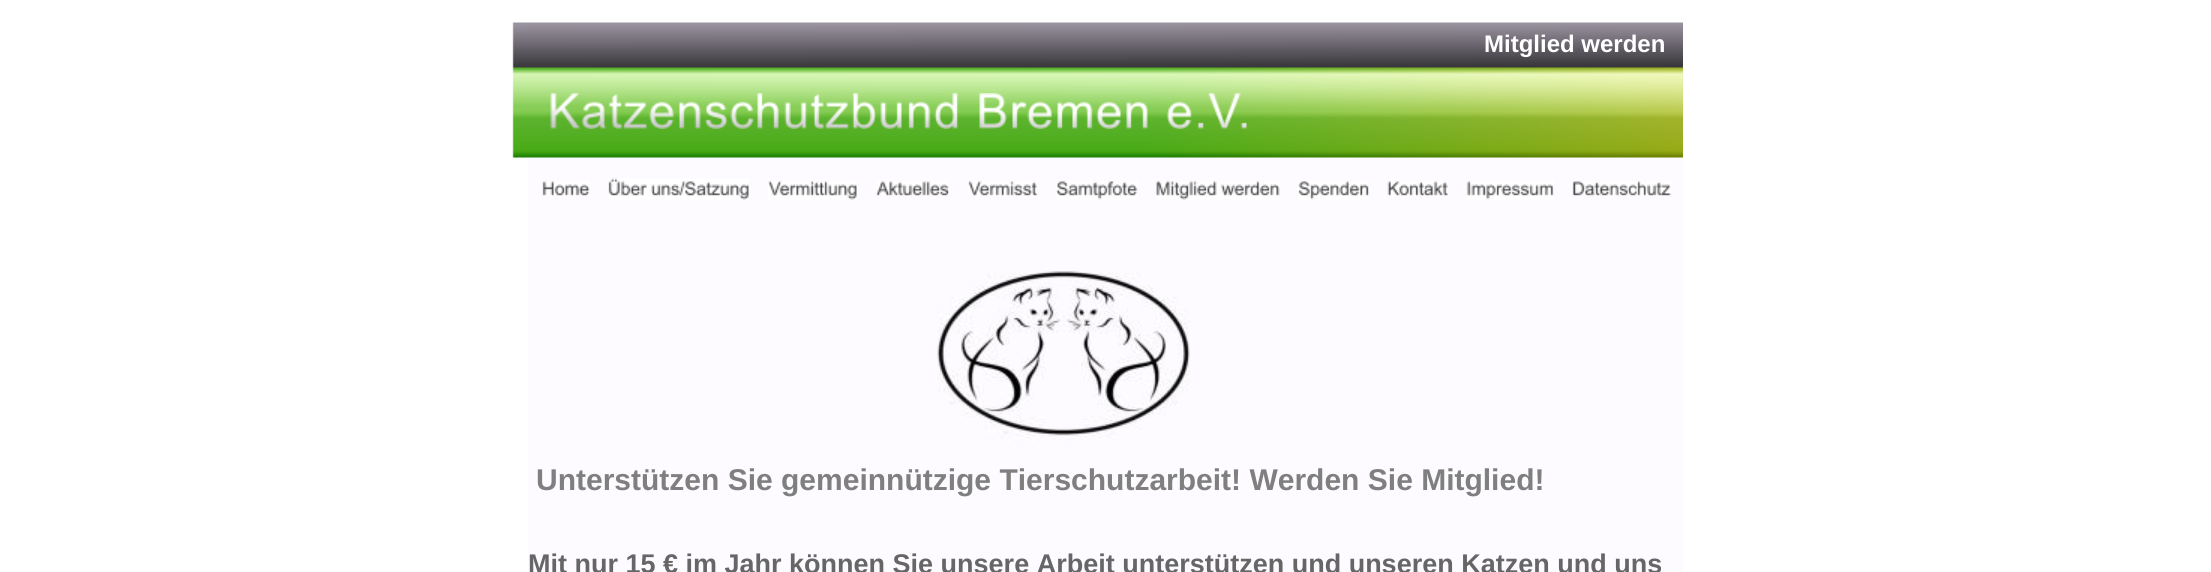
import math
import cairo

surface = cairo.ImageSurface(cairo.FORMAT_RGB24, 2211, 572)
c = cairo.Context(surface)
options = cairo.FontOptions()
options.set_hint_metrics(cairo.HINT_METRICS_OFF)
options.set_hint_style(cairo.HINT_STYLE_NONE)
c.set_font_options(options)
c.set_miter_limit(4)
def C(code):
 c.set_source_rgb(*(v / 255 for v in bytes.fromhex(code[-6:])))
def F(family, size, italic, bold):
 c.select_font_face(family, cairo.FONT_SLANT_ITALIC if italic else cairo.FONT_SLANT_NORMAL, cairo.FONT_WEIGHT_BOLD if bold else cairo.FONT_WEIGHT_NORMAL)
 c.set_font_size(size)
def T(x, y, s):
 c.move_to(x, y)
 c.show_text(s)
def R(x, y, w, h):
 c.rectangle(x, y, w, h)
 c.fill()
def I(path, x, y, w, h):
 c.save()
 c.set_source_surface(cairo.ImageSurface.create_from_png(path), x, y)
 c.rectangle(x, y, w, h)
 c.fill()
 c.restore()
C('ffffff')
c.paint()
C('fdfbff')
R(528,157,1155,415)
I('1.png',512,22,1171,136)
F('Liberation Sans',24,0,1)
C('ffffff')
T(1484,52,'Mitglied werden')
I('2.png',550,93,697,36)
I('3.png',542,181,48,15)
I('4.png',608,178,141,22)
I('5.png',768,181,89,19)
I('6.png',876,181,73,15)
I('7.png',968,181,69,15)
I('8.png',1056,181,82,19)
I('9.png',1156,181,124,19)
I('10.png',1298,181,71,19)
I('11.png',1387,181,61,15)
I('12.png',1466,181,88,19)
I('13.png',1572,181,100,15)
I('14.png',937,270,253,171)
F('Liberation Sans',30,0,1)
C('7f7f7f')
T(536,490,'Unterstützen Sie gemeinnützige Tierschutzarbeit! Werden Sie Mitglied!')
F('Liberation Sans',27,0,1)
C('666666')
T(528,573,'Mit nur 15 € im Jahr können Sie unsere Arbeit unterstützen und unseren Katzen und uns')
surface.write_to_png('o.png')
